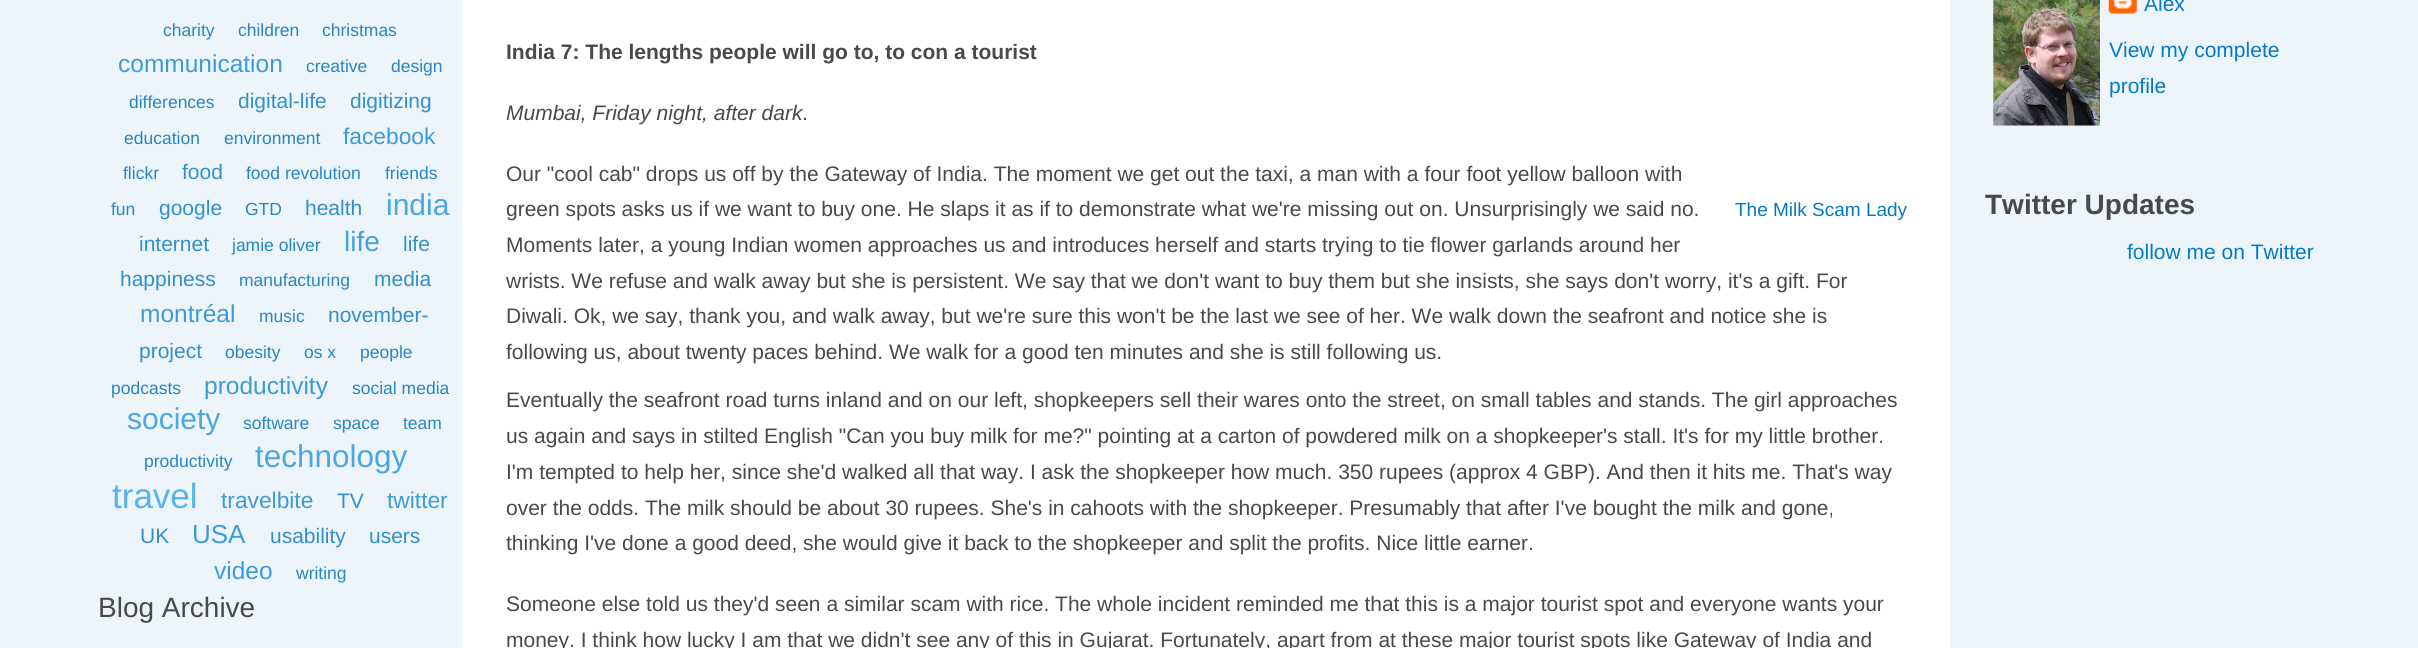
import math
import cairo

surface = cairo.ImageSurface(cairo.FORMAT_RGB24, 2418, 648)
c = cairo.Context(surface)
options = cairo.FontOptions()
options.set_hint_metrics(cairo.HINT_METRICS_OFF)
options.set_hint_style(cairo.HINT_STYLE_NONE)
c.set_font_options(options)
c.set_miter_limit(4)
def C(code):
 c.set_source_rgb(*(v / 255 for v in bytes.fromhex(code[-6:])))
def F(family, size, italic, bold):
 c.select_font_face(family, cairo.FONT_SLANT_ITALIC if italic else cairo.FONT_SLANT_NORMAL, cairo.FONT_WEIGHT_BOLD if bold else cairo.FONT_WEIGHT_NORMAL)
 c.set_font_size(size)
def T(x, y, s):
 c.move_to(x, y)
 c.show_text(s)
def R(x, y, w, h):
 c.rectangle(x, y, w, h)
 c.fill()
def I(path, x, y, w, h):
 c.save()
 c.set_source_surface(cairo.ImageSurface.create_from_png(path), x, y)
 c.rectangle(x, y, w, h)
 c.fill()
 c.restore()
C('edf5fa')
c.paint()
F('Liberation Sans',17.5,0,0)
C('2586c3')
T(163,36,'charity')
T(238,36,'children')
T(322,36,'christmas')
F('Liberation Sans',24.5,0,0)
C('3c9bd6')
T(118,72,'communication')
F('Liberation Sans',17.5,0,0)
C('2586c3')
T(306,72,'creative')
T(391,72,'design')
T(129,108,'differences')
F('Liberation Sans',21,0,0)
C('3090cc')
T(238,108,'digital-life')
T(350,108,'digitizing')
F('Liberation Sans',17.5,0,0)
C('2586c3')
T(124,144,'education')
T(224,144,'environment')
F('Liberation Sans',22.75,0,0)
C('3c9bd6')
T(343,144,'facebook')
F('Liberation Sans',17.5,0,0)
C('2586c3')
T(123,179,'flickr')
F('Liberation Sans',21,0,0)
C('3090cc')
T(182,179,'food')
F('Liberation Sans',17.5,0,0)
C('2586c3')
T(246,179,'food revolution')
T(385,179,'friends')
T(111,215,'fun')
F('Liberation Sans',21,0,0)
C('3090cc')
T(159,215,'google')
F('Liberation Sans',17.5,0,0)
C('2586c3')
T(245,215,'GTD')
F('Liberation Sans',21,0,0)
C('3090cc')
T(305,215,'health')
F('Liberation Sans',30,0,0)
C('4aa7e1')
T(386,215,'india')
F('Liberation Sans',21,0,0)
C('3090cc')
T(139,251,'internet')
F('Liberation Sans',17.5,0,0)
C('2586c3')
T(232,251,'jamie oliver')
F('Liberation Sans',28,0,0)
C('43a1db')
T(344,251,'life')
F('Liberation Sans',21,0,0)
C('3090cc')
T(403,251,'life')
T(120,286,'happiness')
F('Liberation Sans',17.5,0,0)
C('2586c3')
T(239,286,'manufacturing')
F('Liberation Sans',21,0,0)
C('3090cc')
T(374,286,'media')
F('Liberation Sans',24.5,0,0)
C('3c9bd6')
T(140,322,'montréal')
F('Liberation Sans',17.5,0,0)
C('2586c3')
T(259,322,'music')
F('Liberation Sans',21,0,0)
C('3090cc')
T(328,322,'november-')
T(139,358,'project')
F('Liberation Sans',17.5,0,0)
C('2586c3')
T(225,358,'obesity')
T(304,358,'os x')
T(360,358,'people')
T(111,394,'podcasts')
F('Liberation Sans',24.5,0,0)
C('3c9bd6')
T(204,394,'productivity')
F('Liberation Sans',17.5,0,0)
C('2586c3')
T(352,394,'social media')
F('Liberation Sans',30,0,0)
C('4aa7e1')
T(127,429,'society')
F('Liberation Sans',17.5,0,0)
C('2586c3')
T(243,429,'software')
T(333,429,'space')
T(403,429,'team')
T(144,467,'productivity')
F('Liberation Sans',31.5,0,0)
C('4aa7e1')
T(255,467,'technology')
F('Liberation Sans',35,0,0)
C('57b3ec')
T(112,508,'travel')
F('Liberation Sans',22.75,0,0)
C('3c9bd6')
T(221,508,'travelbite')
F('Liberation Sans',21,0,0)
C('3090cc')
T(337,508,'TV')
F('Liberation Sans',22.75,0,0)
C('3c9bd6')
T(387,508,'twitter')
F('Liberation Sans',21,0,0)
C('3090cc')
T(140,543,'UK')
F('Liberation Sans',26,0,0)
C('3c9bd6')
T(192,543,'USA')
F('Liberation Sans',21,0,0)
C('3090cc')
T(270,543,'usability')
T(369,543,'users')
F('Liberation Sans',24.5,0,0)
C('3c9bd6')
T(214,579,'video')
F('Liberation Sans',17.5,0,0)
C('2586c3')
T(296,579,'writing')
F('Liberation Sans',28,0,0)
C('494949')
T(98,617,'Blog Archive')
C('ffffff')
R(462,0,1488,648)
F('Liberation Sans',21,0,1)
C('494949')
T(506,59,'India 7: The lengths people will go to, to con a tourist')
F('Liberation Sans',21,1,0)
T(506,120,'Mumbai, Friday night, after dark')
F('Liberation Sans',21,0,0)
T(802,120,'.')
T(506,181,'Our "cool cab" drops us off by the Gateway of India. The moment we get out the taxi, a man with a four foot yellow balloon with')
T(506,216,'green spots asks us if we want to buy one. He slaps it as if to demonstrate what we\'re missing out on. Unsurprisingly we said no.')
F('Liberation Sans',19,0,0)
C('027ac6')
T(1735,216,'The Milk Scam Lady')
F('Liberation Sans',21,0,0)
C('494949')
T(506,252,'Moments later, a young Indian women approaches us and introduces herself and starts trying to tie flower garlands around her')
T(506,288,'wrists. We refuse and walk away but she is persistent. We say that we don\'t want to buy them but she insists, she says don\'t worry, it\'s a gift. For')
T(506,323,'Diwali. Ok, we say, thank you, and walk away, but we\'re sure this won\'t be the last we see of her. We walk down the seafront and notice she is')
T(506,359,'following us, about twenty paces behind. We walk for a good ten minutes and she is still following us.')
T(506,407,'Eventually the seafront road turns inland and on our left, shopkeepers sell their wares onto the street, on small tables and stands. The girl approaches')
T(506,443,'us again and says in stilted English "Can you buy milk for me?" pointing at a carton of powdered milk on a shopkeeper\'s stall. It\'s for my little brother.')
T(506,479,'I\'m tempted to help her, since she\'d walked all that way. I ask the shopkeeper how much. 350 rupees (approx 4 GBP). And then it hits me. That\'s way')
T(506,515,'over the odds. The milk should be about 30 rupees. She\'s in cahoots with the shopkeeper. Presumably that after I\'ve bought the milk and gone,')
T(506,550,'thinking I\'ve done a good deed, she would give it back to the shopkeeper and split the profits. Nice little earner.')
T(506,611,'Someone else told us they\'d seen a similar scam with rice. The whole incident reminded me that this is a major tourist spot and everyone wants your')
T(506,647,'money. I think how lucky I am that we didn\'t see any of this in Gujarat. Fortunately, apart from at these major tourist spots like Gateway of India and')
I('1.png',1993,0,107,126)
I('2.png',2108,0,29,14)
C('027ac6')
T(2144,11,'Alex')
T(2109,57,'View my complete')
T(2109,93,'profile')
F('Liberation Sans',28,0,1)
C('494949')
T(1985,214,'Twitter Updates')
F('Liberation Sans',21,0,0)
C('027ac6')
T(2127,259,'follow me on Twitter')
surface.write_to_png('o.png')
